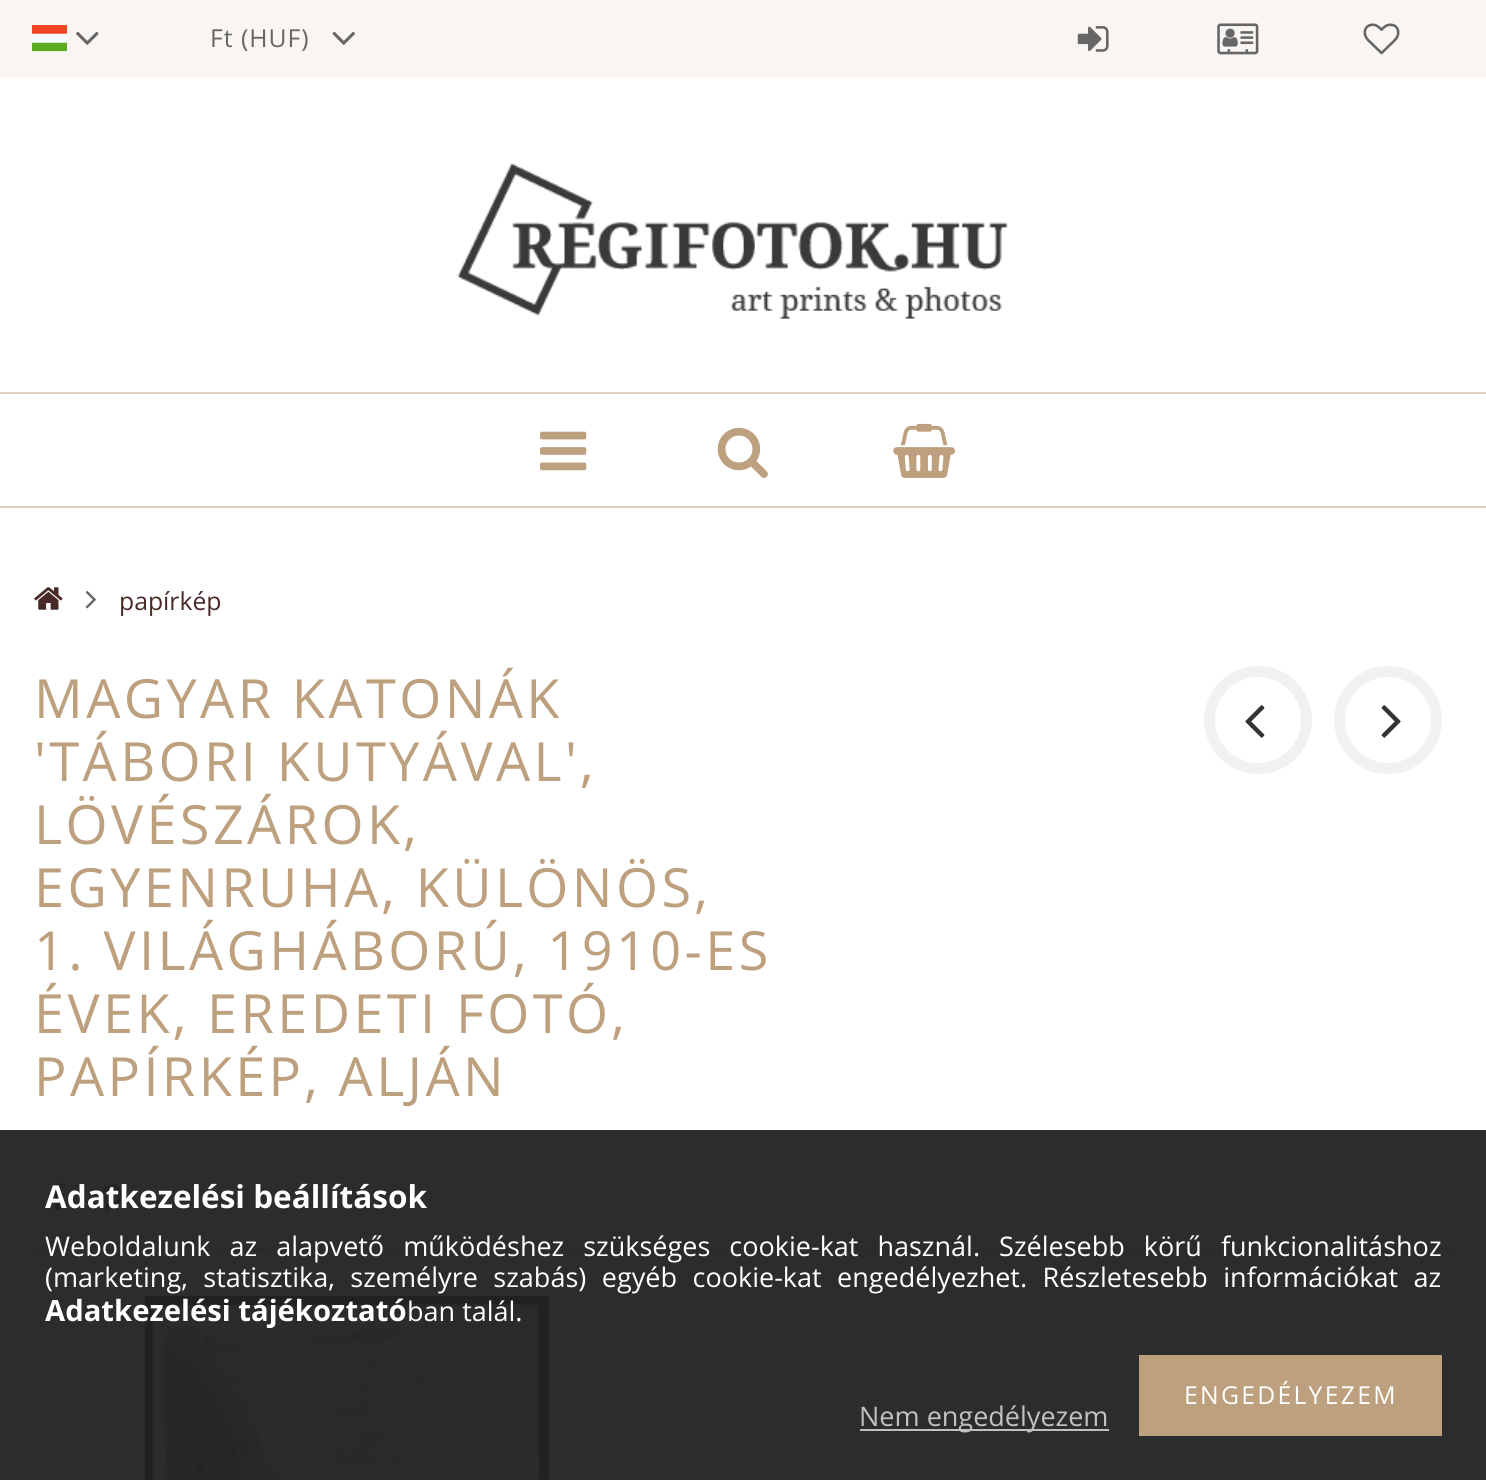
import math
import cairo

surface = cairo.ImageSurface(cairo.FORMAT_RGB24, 1486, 1480)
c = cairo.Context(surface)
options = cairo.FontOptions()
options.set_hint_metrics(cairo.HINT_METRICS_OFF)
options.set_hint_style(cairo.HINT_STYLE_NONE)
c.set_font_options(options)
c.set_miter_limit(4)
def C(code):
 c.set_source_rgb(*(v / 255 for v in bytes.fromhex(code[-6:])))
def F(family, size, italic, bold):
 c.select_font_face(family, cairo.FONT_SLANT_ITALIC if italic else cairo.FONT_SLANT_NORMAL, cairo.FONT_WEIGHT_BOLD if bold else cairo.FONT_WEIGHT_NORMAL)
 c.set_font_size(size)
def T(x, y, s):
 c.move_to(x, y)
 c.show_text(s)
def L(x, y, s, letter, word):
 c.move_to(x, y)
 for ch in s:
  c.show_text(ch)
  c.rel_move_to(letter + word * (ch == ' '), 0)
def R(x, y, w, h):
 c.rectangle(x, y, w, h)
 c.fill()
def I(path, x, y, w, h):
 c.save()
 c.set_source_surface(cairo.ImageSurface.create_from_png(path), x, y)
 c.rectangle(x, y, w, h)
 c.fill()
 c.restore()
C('ffffff')
c.paint()
C('f8f5f2')
R(0,0,1486,77)
I('1.png',32,25,35,27)
I('2.png',76,31,23,14)
F('Open Sans',24.75,0,0)
C('666666')
L(210,47,'Ft (HUF)',1,0)
I('3.png',332,31,23,14)
I('4.png',1077,26,32,26)
I('5.png',1217,23,42,32)
I('6.png',1363,23,37,32)
I('7.png',457,163,551,156)
C('decfbe')
R(0,392,1486,2)
R(0,506,1486,2)
I('8.png',540,431,47,40)
I('9.png',717,427,51,51)
I('10.png',893,423,62,55)
I('11.png',34,587,29,23)
I('12.png',85,590,11,19)
C('482a28')
T(119,610,'papírkép')
C('dddddd')
R(34,1249,1420,2)
F('Open Sans',54,0,0)
C('bda07e')
L(34,718,'MAGYAR KATONÁK',3.4,0)
L(34,781,'\'TÁBORI KUTYÁVAL\',',3.4,0)
L(34,844,'LÖVÉSZÁROK,',3.4,0)
L(34,907,'EGYENRUHA, KÜLÖNÖS,',3.4,0)
L(34,970,'1. VILÁGHÁBORÚ, 1910-ES',3.4,0)
L(34,1033,'ÉVEK, EREDETI FOTÓ,',3.4,0)
L(34,1096,'PAPÍRKÉP, ALJÁN',3.4,0)
I('13.png',51,1183,15,28)
I('14.png',101,1185,22,28)
c.arc(1258,720,48.5,0,2 * math.pi)
C('f1f1f1')
c.set_line_width(11)
c.stroke()
I('15.png',1245,705,20,33)
c.arc(1388,720,48.5,0,2 * math.pi)
c.stroke()
I('16.png',1381,705,20,33)
I('17.png',144,1296,407,184)
c.set_source_rgba(0.133,0.133,0.133,0.95)
R(0,1130,1486,350)
F('Open Sans',31.5,0,1)
C('ffffff')
T(45,1208,'Adatkezelési beállítások')
F('Open Sans',27,0,0)
L(45,1256,'Weboldalunk az alapvető működéshez szükséges cookie-kat használ. Szélesebb körű funkcionalitáshoz',0,12)
L(45,1287,'(marketing, statisztika, személyre szabás) egyéb cookie-kat engedélyezhet. Részletesebb információkat az',0,8.5)
F('Open Sans',29.25,0,1)
T(45,1321,'Adatkezelési tájékoztató')
F('Open Sans',27,0,0)
T(407,1321,'ban talál.')
C('bda07e')
R(1139,1355,303,81)
F('Open Sans',24.75,0,0)
C('ffffff')
L(1184,1404,'ENGEDÉLYEZEM',2.25,0)
c.set_source_rgba(1,1,1,0.7)
R(860,1429,249,2)
F('Open Sans',27,0,0)
C('c1c1c1')
T(859,1426,'Nem engedélyezem')
surface.write_to_png('o.png')
